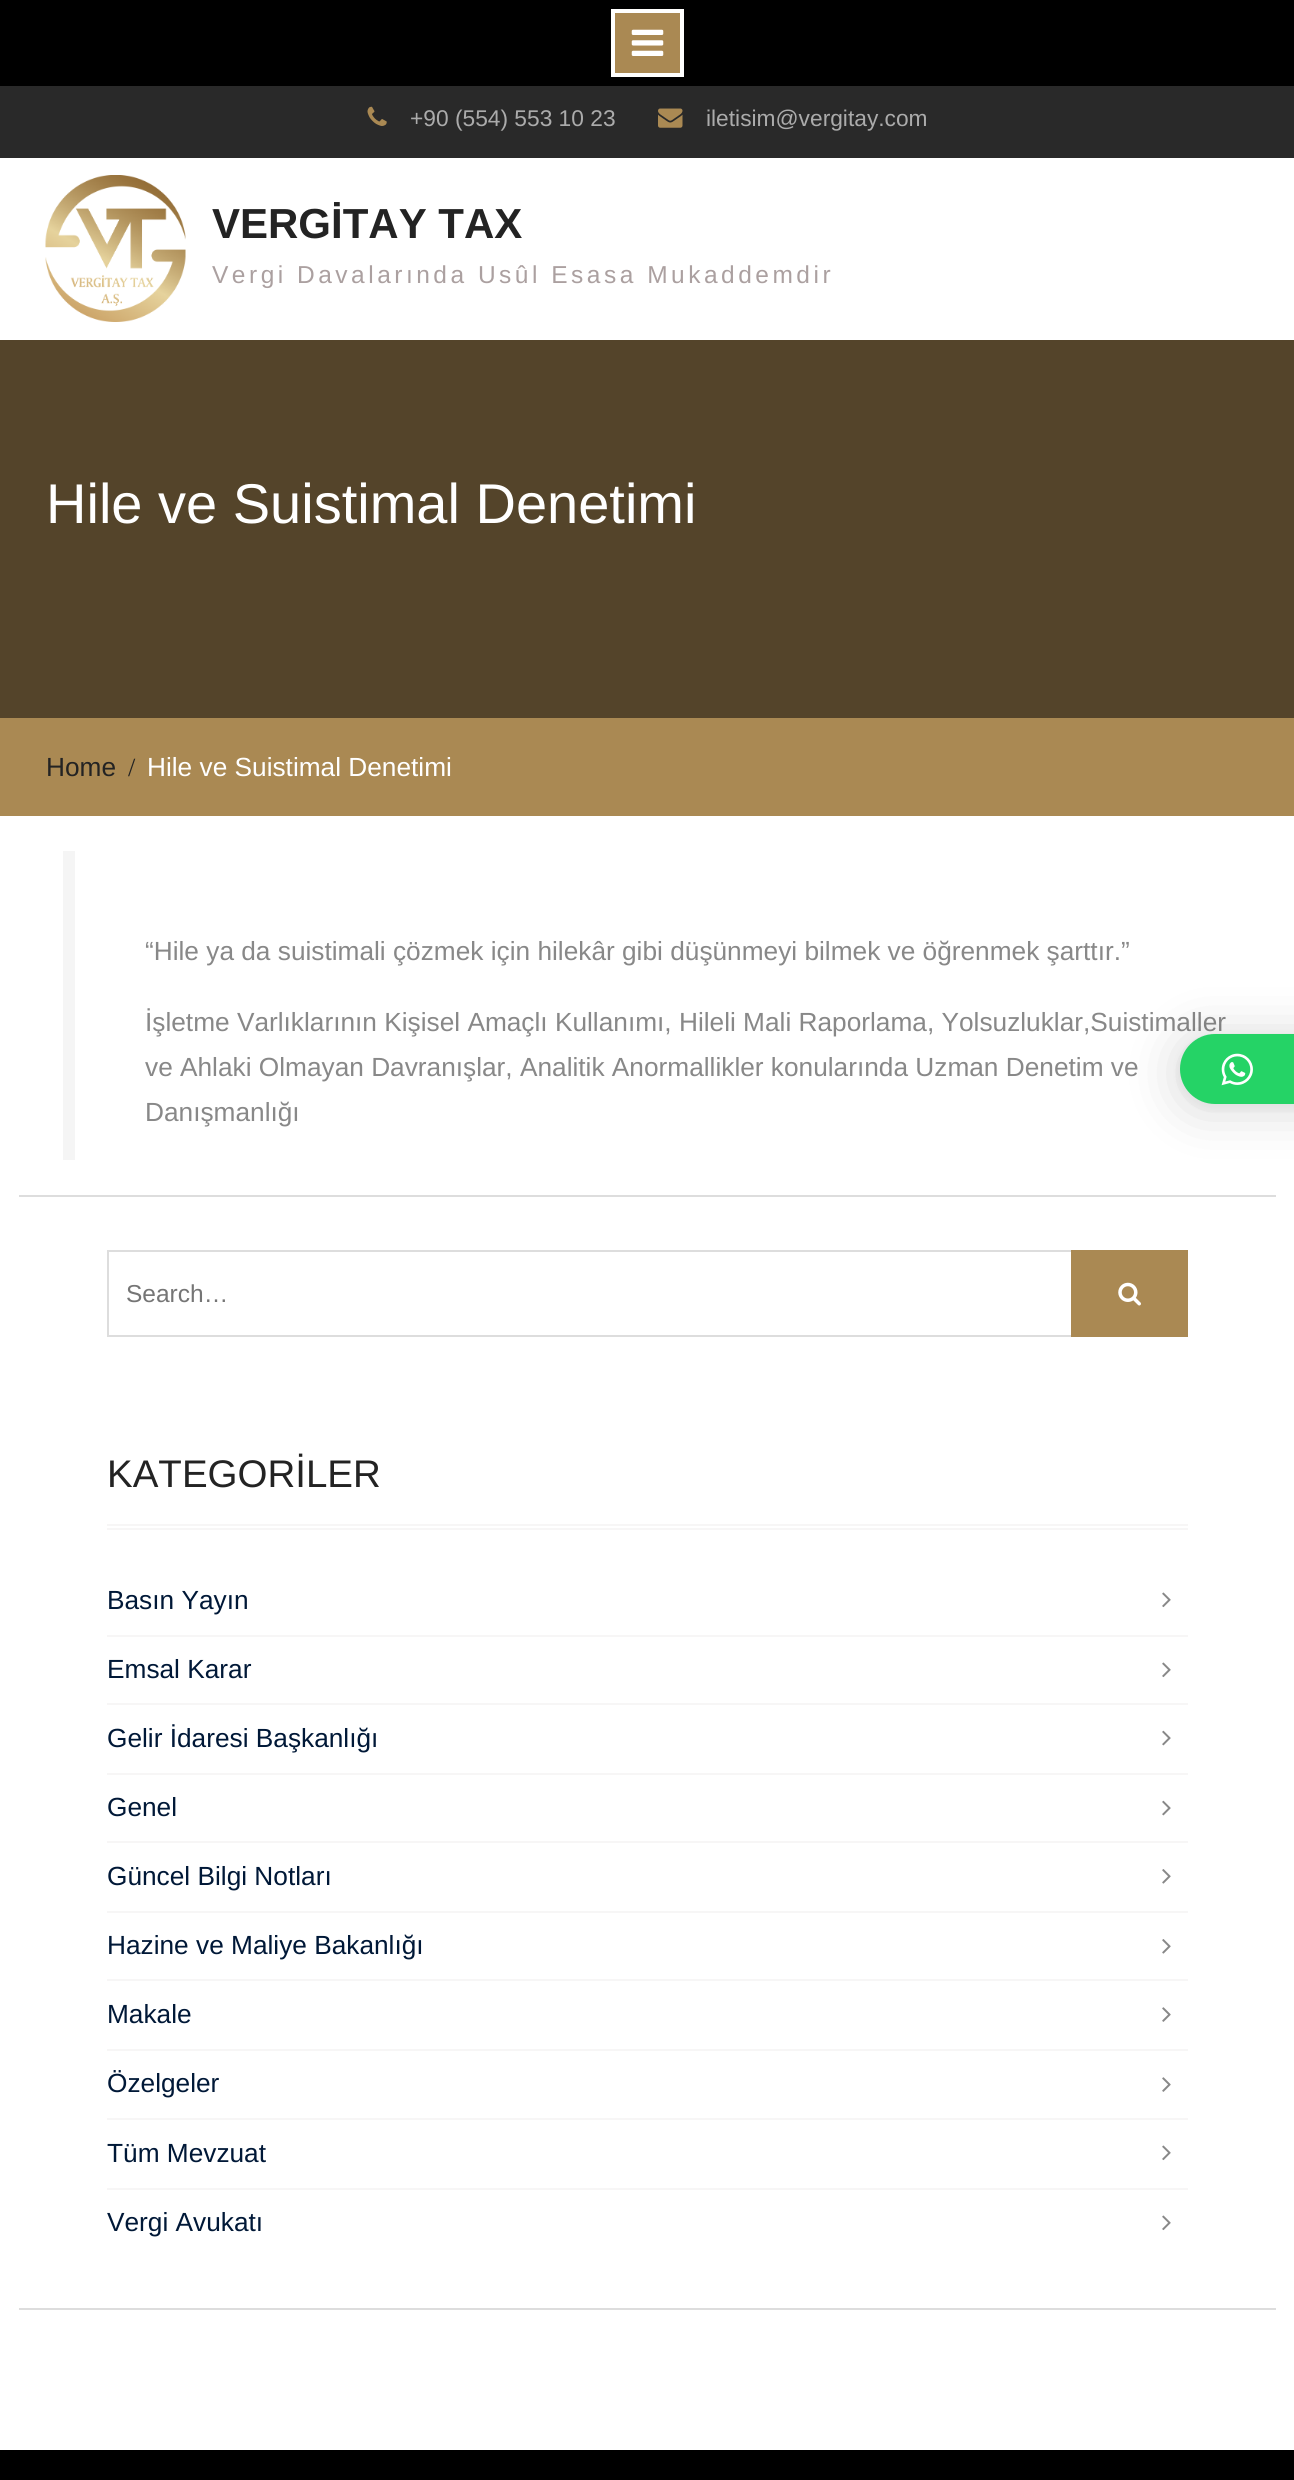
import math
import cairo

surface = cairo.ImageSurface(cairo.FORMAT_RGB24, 1294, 2480)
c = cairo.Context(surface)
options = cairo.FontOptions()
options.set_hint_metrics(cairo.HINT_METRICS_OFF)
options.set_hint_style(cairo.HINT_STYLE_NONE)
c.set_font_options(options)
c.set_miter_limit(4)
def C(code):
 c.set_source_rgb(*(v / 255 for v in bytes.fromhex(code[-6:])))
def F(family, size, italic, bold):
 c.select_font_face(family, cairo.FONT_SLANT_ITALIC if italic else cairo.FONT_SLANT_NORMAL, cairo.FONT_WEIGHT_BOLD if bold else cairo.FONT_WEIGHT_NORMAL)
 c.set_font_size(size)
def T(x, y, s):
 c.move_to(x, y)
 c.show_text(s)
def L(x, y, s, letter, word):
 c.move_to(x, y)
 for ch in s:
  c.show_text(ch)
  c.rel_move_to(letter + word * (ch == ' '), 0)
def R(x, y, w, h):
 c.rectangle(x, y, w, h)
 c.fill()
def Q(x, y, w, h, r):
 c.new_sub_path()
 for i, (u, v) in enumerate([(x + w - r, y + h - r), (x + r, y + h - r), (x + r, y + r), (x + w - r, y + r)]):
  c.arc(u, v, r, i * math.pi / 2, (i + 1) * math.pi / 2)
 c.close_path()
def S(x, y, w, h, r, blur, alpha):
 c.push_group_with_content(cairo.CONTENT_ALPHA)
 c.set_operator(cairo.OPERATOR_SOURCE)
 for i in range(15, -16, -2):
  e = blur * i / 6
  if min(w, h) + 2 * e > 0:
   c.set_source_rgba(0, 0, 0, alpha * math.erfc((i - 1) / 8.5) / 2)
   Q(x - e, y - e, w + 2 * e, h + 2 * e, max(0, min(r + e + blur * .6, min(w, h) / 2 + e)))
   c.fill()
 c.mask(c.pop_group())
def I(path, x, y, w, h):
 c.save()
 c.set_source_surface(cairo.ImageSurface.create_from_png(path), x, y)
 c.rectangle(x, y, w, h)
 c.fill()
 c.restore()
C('ffffff')
c.paint()
C('000000')
R(0,0,1294,86)
C('aa8953')
c.rectangle(613,11,69,64)
c.fill_preserve()
C('fffffe')
c.set_line_width(4)
c.stroke()
I('1.png',631,29,33,27)
C('292929')
R(0,86,1294,72)
I('2.png',367,106,20,20)
F('Liberation Sans',22.75,0,0)
C('ababab')
T(410,126,'+90 (554) 553 10 23')
I('3.png',658,108,25,20)
T(706,126,'iletisim@vergitay.com')
I('4.png',45,175,141,147)
F('Liberation Sans',42,0,1)
C('232323')
T(212,238,'VERGİTAY TAX')
F('Liberation Sans',24.5,0,0)
C('aba0a0')
L(212,283,'Vergi Davalarında Usûl Esasa Mukaddemdir',3.5,0)
C('54442a')
R(0,340,1294,378)
F('Liberation Sans',56,0,0)
C('ffffff')
T(46,523,'Hile ve Suistimal Denetimi')
C('aa8953')
R(0,718,1294,98)
F('Liberation Sans',26.25,0,0)
C('232323')
T(46,776,'Home')
F('Liberation Serif',26.25,0,0)
T(128,776,'/')
F('Liberation Sans',26.25,0,0)
C('ffffff')
T(147,776,'Hile ve Suistimal Denetimi')
C('dddddd')
R(19,1195,1257,2)
C('f5f5f5')
R(63,851,12,309)
C('888888')
T(145,960,'“Hile ya da suistimali çözmek için hilekâr gibi düşünmeyi bilmek ve öğrenmek şarttır.”')
T(145,1031,'İşletme Varlıklarının Kişisel Amaçlı Kullanımı, Hileli Mali Raporlama, Yolsuzluklar,Suistimaller')
T(145,1076,'ve Ahlaki Olmayan Davranışlar, Analitik Anormallikler konularında Uzman Denetim ve')
T(145,1121,'Danışmanlığı')
C('dddddd')
R(19,2308,1257,2)
c.rectangle(108,1251,1079,85)
c.set_line_width(2)
c.stroke()
F('Liberation Sans',24.5,0,0)
C('757575')
T(126,1302,'Search…')
C('aa8953')
R(1071,1250,117,87)
I('5.png',1118,1282,23,24)
C('f7f6f6')
R(107,1524,1081,2)
R(107,1528,1081,2)
F('Liberation Sans',38.5,0,0)
C('232323')
T(107,1487,'KATEGORİLER')
F('Liberation Sans',26.25,0,0)
C('001837')
T(107,1609,'Basın Yayın')
I('6.png',1162,1592,9,16)
C('f7f6f6')
R(107,1635,1081,2)
C('001837')
T(107,1678,'Emsal Karar')
I('6.png',1162,1662,9,16)
C('f7f6f6')
R(107,1703,1081,2)
C('001837')
T(107,1747,'Gelir İdaresi Başkanlığı')
I('7.png',1162,1730,9,16)
C('f7f6f6')
R(107,1773,1081,2)
C('001837')
T(107,1816,'Genel')
I('7.png',1162,1800,9,16)
C('f7f6f6')
R(107,1841,1081,2)
C('001837')
T(107,1885,'Güncel Bilgi Notları')
I('8.png',1162,1869,9,15)
C('f7f6f6')
R(107,1911,1081,2)
C('001837')
T(107,1954,'Hazine ve Maliye Bakanlığı')
I('8.png',1162,1939,9,15)
C('f7f6f6')
R(107,1979,1081,2)
C('001837')
T(107,2023,'Makale')
I('9.png',1162,2007,9,15)
C('f7f6f6')
R(107,2049,1081,2)
C('001837')
T(107,2092,'Özelgeler')
I('9.png',1162,2077,9,15)
C('f7f6f6')
R(107,2118,1081,2)
C('001837')
T(107,2162,'Tüm Mevzuat')
I('6.png',1162,2145,9,16)
C('f7f6f6')
R(107,2188,1081,2)
C('001837')
T(107,2231,'Vergi Avukatı')
I('6.png',1162,2215,9,16)
C('000000')
R(0,2450,1294,30)
C('000000')
S(1180,1038,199,70,35,28,.16)
S(1180,1036,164,70,35,5,.06)
C('25d366')
Q(1180,1034,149,70,35)
c.fill()
I('10.png',1221,1053,32,33)
surface.write_to_png('o.png')
